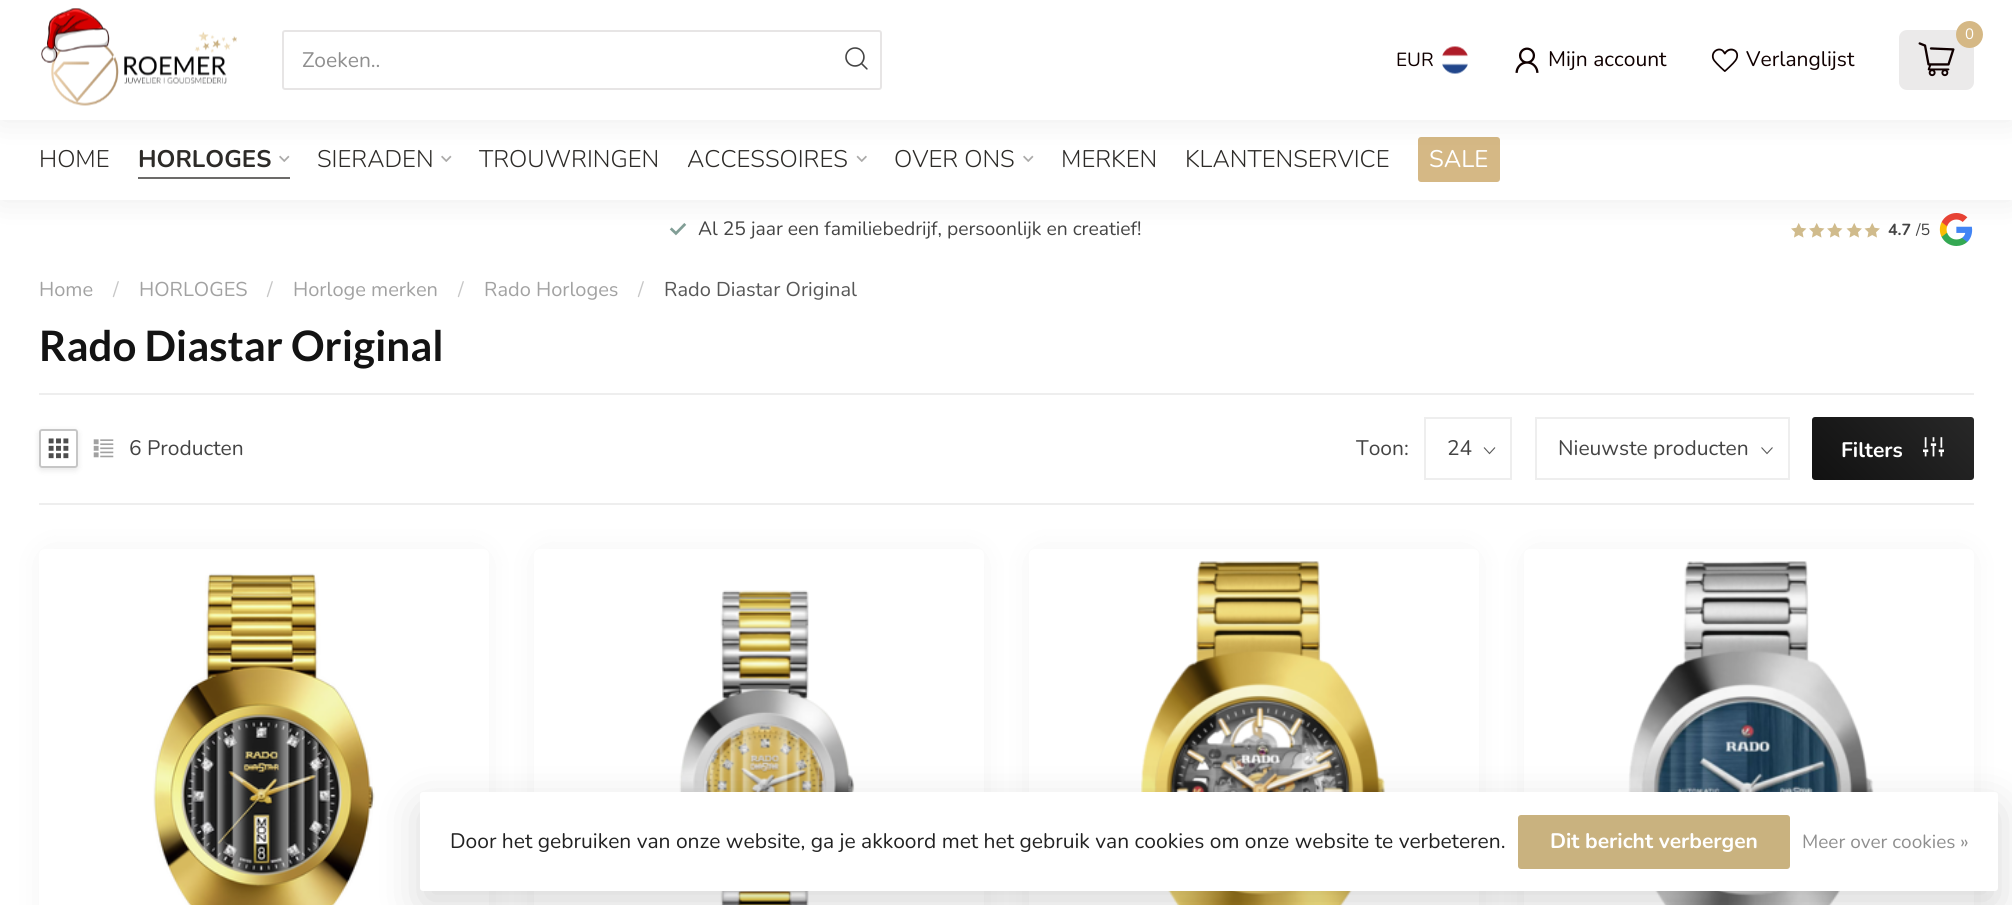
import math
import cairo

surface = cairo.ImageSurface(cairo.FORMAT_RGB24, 2012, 905)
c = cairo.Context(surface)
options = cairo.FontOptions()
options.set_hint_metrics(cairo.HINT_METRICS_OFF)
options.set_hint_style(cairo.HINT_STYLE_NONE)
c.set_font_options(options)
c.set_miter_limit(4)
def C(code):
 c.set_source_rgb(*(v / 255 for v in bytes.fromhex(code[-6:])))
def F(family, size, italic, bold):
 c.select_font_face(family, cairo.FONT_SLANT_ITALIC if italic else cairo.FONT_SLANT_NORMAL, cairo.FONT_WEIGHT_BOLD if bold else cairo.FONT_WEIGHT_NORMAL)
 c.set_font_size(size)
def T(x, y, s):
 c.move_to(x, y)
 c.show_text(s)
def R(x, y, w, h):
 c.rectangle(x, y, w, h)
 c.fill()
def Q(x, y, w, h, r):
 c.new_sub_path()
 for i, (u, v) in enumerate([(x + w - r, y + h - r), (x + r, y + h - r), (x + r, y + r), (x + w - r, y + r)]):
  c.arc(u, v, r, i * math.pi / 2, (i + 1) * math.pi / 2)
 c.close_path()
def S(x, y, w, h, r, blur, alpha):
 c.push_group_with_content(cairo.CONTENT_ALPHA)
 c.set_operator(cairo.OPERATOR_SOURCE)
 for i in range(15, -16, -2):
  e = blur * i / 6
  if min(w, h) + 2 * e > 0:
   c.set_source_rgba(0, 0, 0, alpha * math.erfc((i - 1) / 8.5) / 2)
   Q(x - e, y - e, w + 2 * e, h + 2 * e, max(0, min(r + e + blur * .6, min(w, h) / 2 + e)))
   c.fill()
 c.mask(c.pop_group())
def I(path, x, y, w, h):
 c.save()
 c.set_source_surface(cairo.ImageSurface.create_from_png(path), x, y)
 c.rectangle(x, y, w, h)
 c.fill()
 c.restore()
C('ffffff')
c.paint()
I('9.png',669,223,18,13)
I('10.png',1791,223,16,15)
I('10.png',1809,223,16,15)
I('10.png',1827,223,16,15)
I('11.png',1846,223,16,15)
I('11.png',1864,223,16,15)
I('12.png',1939,213,34,33)
C('000000')
S(0,120,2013,80,0,16.5,.08)
C('ffffff')
R(0,120,2012,80)
I('7.png',279,155,11,7)
I('7.png',441,155,11,7)
I('8.png',856,155,11,7)
I('7.png',1023,155,11,7)
C('d5b885')
Q(1418,137,82,45,3)
c.fill()
C('000000')
S(0,0,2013,120,0,16.5,.08)
C('ffffff')
R(0,0,2012,120)
I('1.png',41,8,196,98)
Q(283,31,598,58,2)
C('e7e5e5')
c.stroke()
F('Nunito',21,0,0)
C('8f8f8f')
T(302,67,'Zoeken..')
I('2.png',845,47,23,23)
C('ebeaea')
Q(1899,30,75,60,8)
c.fill()
C('d5b885')
c.arc(1969.5,34.5,13.5,0,2 * math.pi)
c.fill()
F('Nunito',15,0,0)
C('ffffff')
T(1965,39,'0')
I('3.png',1918,42,37,35)
F('Nunito',19,0,0)
C('100000')
T(1396,66,'EUR')
I('4.png',1442,46,26,28)
I('5.png',1515,47,24,26)
F('Nunito',21,0,0)
T(1548,66,'Mijn account')
I('6.png',1711,48,28,24)
T(1746,66,'Verlanglijst')
F('Nunito Light',24,0,0)
C('2d2b28')
T(39,167,'HOME')
F('Nunito',24,0,1)
T(138,167,'HORLOGES')
C('6c6b69')
R(138,177,152,2)
F('Nunito Light',24,0,0)
C('2d2b28')
T(317,167,'SIERADEN')
T(479,167,'TROUWRINGEN')
T(687,167,'ACCESSOIRES')
T(894,167,'OVER ONS')
T(1061,167,'MERKEN')
T(1185,167,'KLANTENSERVICE')
F('Nunito',24,0,0)
C('ffffff')
T(1429,167,'SALE')
F('Nunito',19.3,0,0)
C('444444')
T(698,235,'Al 25 jaar een familiebedrijf, persoonlijk en creatief!')
F('Nunito',16,0,1)
T(1888,235,'4.7')
F('Nunito',16,0,0)
T(1916,235,'/5')
F('Nunito',20,0,0)
C('a2a2a2')
T(39,296,'Home')
C('c7c7c7')
T(113,296,'/')
C('a2a2a2')
T(139,296,'HORLOGES')
C('c7c7c7')
T(267,296,'/')
C('a2a2a2')
T(293,296,'Horloge merken')
C('c7c7c7')
T(458,296,'/')
C('a2a2a2')
T(484,296,'Rado Horloges')
C('c7c7c7')
T(638,296,'/')
C('575757')
T(664,296,'Rado Diastar Original')
F('Lato',42,0,1)
C('131313')
T(39,361,'Rado Diastar Original')
C('eeeeee')
R(39,393,1935,2)
R(39,503,1935,2)
c.save()
c.set_fill_rule(cairo.FILL_RULE_EVEN_ODD)
c.new_path()
c.move_to(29,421)
c.line_to(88,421)
c.line_to(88,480)
c.line_to(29,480)
c.close_path()
c.move_to(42,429)
c.line_to(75,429)
c.curve_to(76.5,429,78,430.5,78,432)
c.line_to(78,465)
c.curve_to(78,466.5,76.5,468,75,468)
c.line_to(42,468)
c.curve_to(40.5,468,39,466.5,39,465)
c.line_to(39,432)
c.curve_to(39,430.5,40.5,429,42,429)
c.close_path()
c.clip()
C('000000')
S(39,431,39,39,3,3,.1)
c.restore()
Q(40,430,37,37,2)
C('c6c6c6')
c.stroke()
I('13.png',48,438,21,21)
I('14.png',93,439,21,19)
F('Nunito',21,0,0)
C('444444')
T(129,455,'6 Producten')
T(1356,455,'Toon:')
c.new_path()
c.move_to(1495,447.5)
c.line_to(1489.5,453.5)
c.line_to(1484,447.5)
C('595959')
c.set_line_width(1.1)
c.stroke()
c.rectangle(1425,418,86,61)
C('eeeeee')
c.set_line_width(2)
c.stroke()
C('444444')
T(1447,455,'24')
c.new_path()
c.move_to(1772.5,447.5)
c.line_to(1767,453.5)
c.line_to(1761.5,447.5)
C('595959')
c.set_line_width(1.1)
c.stroke()
c.rectangle(1536,418,253,61)
C('eeeeee')
c.set_line_width(2)
c.stroke()
C('444444')
T(1558,455,'Nieuwste producten')
gradient = cairo.LinearGradient(1837,505,1949,392)
gradient.add_color_stop_rgba(0,0.067,0.067,0.067,1)
gradient.add_color_stop_rgba(1,0.157,0.157,0.157,1)
c.set_source(gradient)
Q(1812,417,162,63,3)
c.fill()
F('Nunito',21,0,1)
C('ffffff')
T(1841,457,'Filters')
I('15.png',1923,437,21,20)
C('000000')
S(48,558,432,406,0,19.5,.07)
C('ffffff')
c.new_path()
c.move_to(45,549)
c.line_to(483,549)
c.curve_to(486.5,549,489,551.5,489,555)
c.line_to(489,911)
c.line_to(39,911)
c.line_to(39,555)
c.curve_to(39,551.5,41.5,549,45,549)
c.close_path()
c.fill()
I('16.png',153,573,222,332)
C('000000')
S(543,558,432,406,0,19.5,.07)
C('ffffff')
c.new_path()
c.move_to(540,549)
c.line_to(978,549)
c.curve_to(981.5,549,984,551.5,984,555)
c.line_to(984,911)
c.line_to(534,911)
c.line_to(534,555)
c.curve_to(534,551.5,536.5,549,540,549)
c.close_path()
c.fill()
I('17.png',679,590,176,315)
C('000000')
S(1038,558,432,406,0,19.5,.07)
C('ffffff')
c.new_path()
c.move_to(1035,549)
c.line_to(1473,549)
c.curve_to(1476.5,549,1479,551.5,1479,555)
c.line_to(1479,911)
c.line_to(1029,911)
c.line_to(1029,555)
c.curve_to(1029,551.5,1031.5,549,1035,549)
c.close_path()
c.fill()
I('18.png',1141,561,245,344)
C('000000')
S(1533,558,432,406,0,19.5,.07)
C('ffffff')
c.new_path()
c.move_to(1530,549)
c.line_to(1968,549)
c.curve_to(1971.5,549,1974,551.5,1974,555)
c.line_to(1974,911)
c.line_to(1524,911)
c.line_to(1524,555)
c.curve_to(1524,551.5,1526.5,549,1530,549)
c.close_path()
c.fill()
I('19.png',1628,561,246,344)
C('000000')
S(420,807,1578,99,3,22.5,.15)
C('ffffff')
Q(420,792,1578,99,3)
c.fill()
F('Nunito',21,0,0)
C('222222')
T(450,848,'Door het gebruiken van onze website, ga je akkoord met het gebruik van cookies om onze website te verbeteren.')
C('c9b27f')
Q(1518,815,272,54,3)
c.fill()
F('Nunito',21,0,1)
C('ffffff')
T(1550,848,'Dit bericht verbergen')
F('Nunito',19,0,0)
C('8f8f8f')
T(1802,848,'Meer over cookies »')
surface.write_to_png('o.png')
